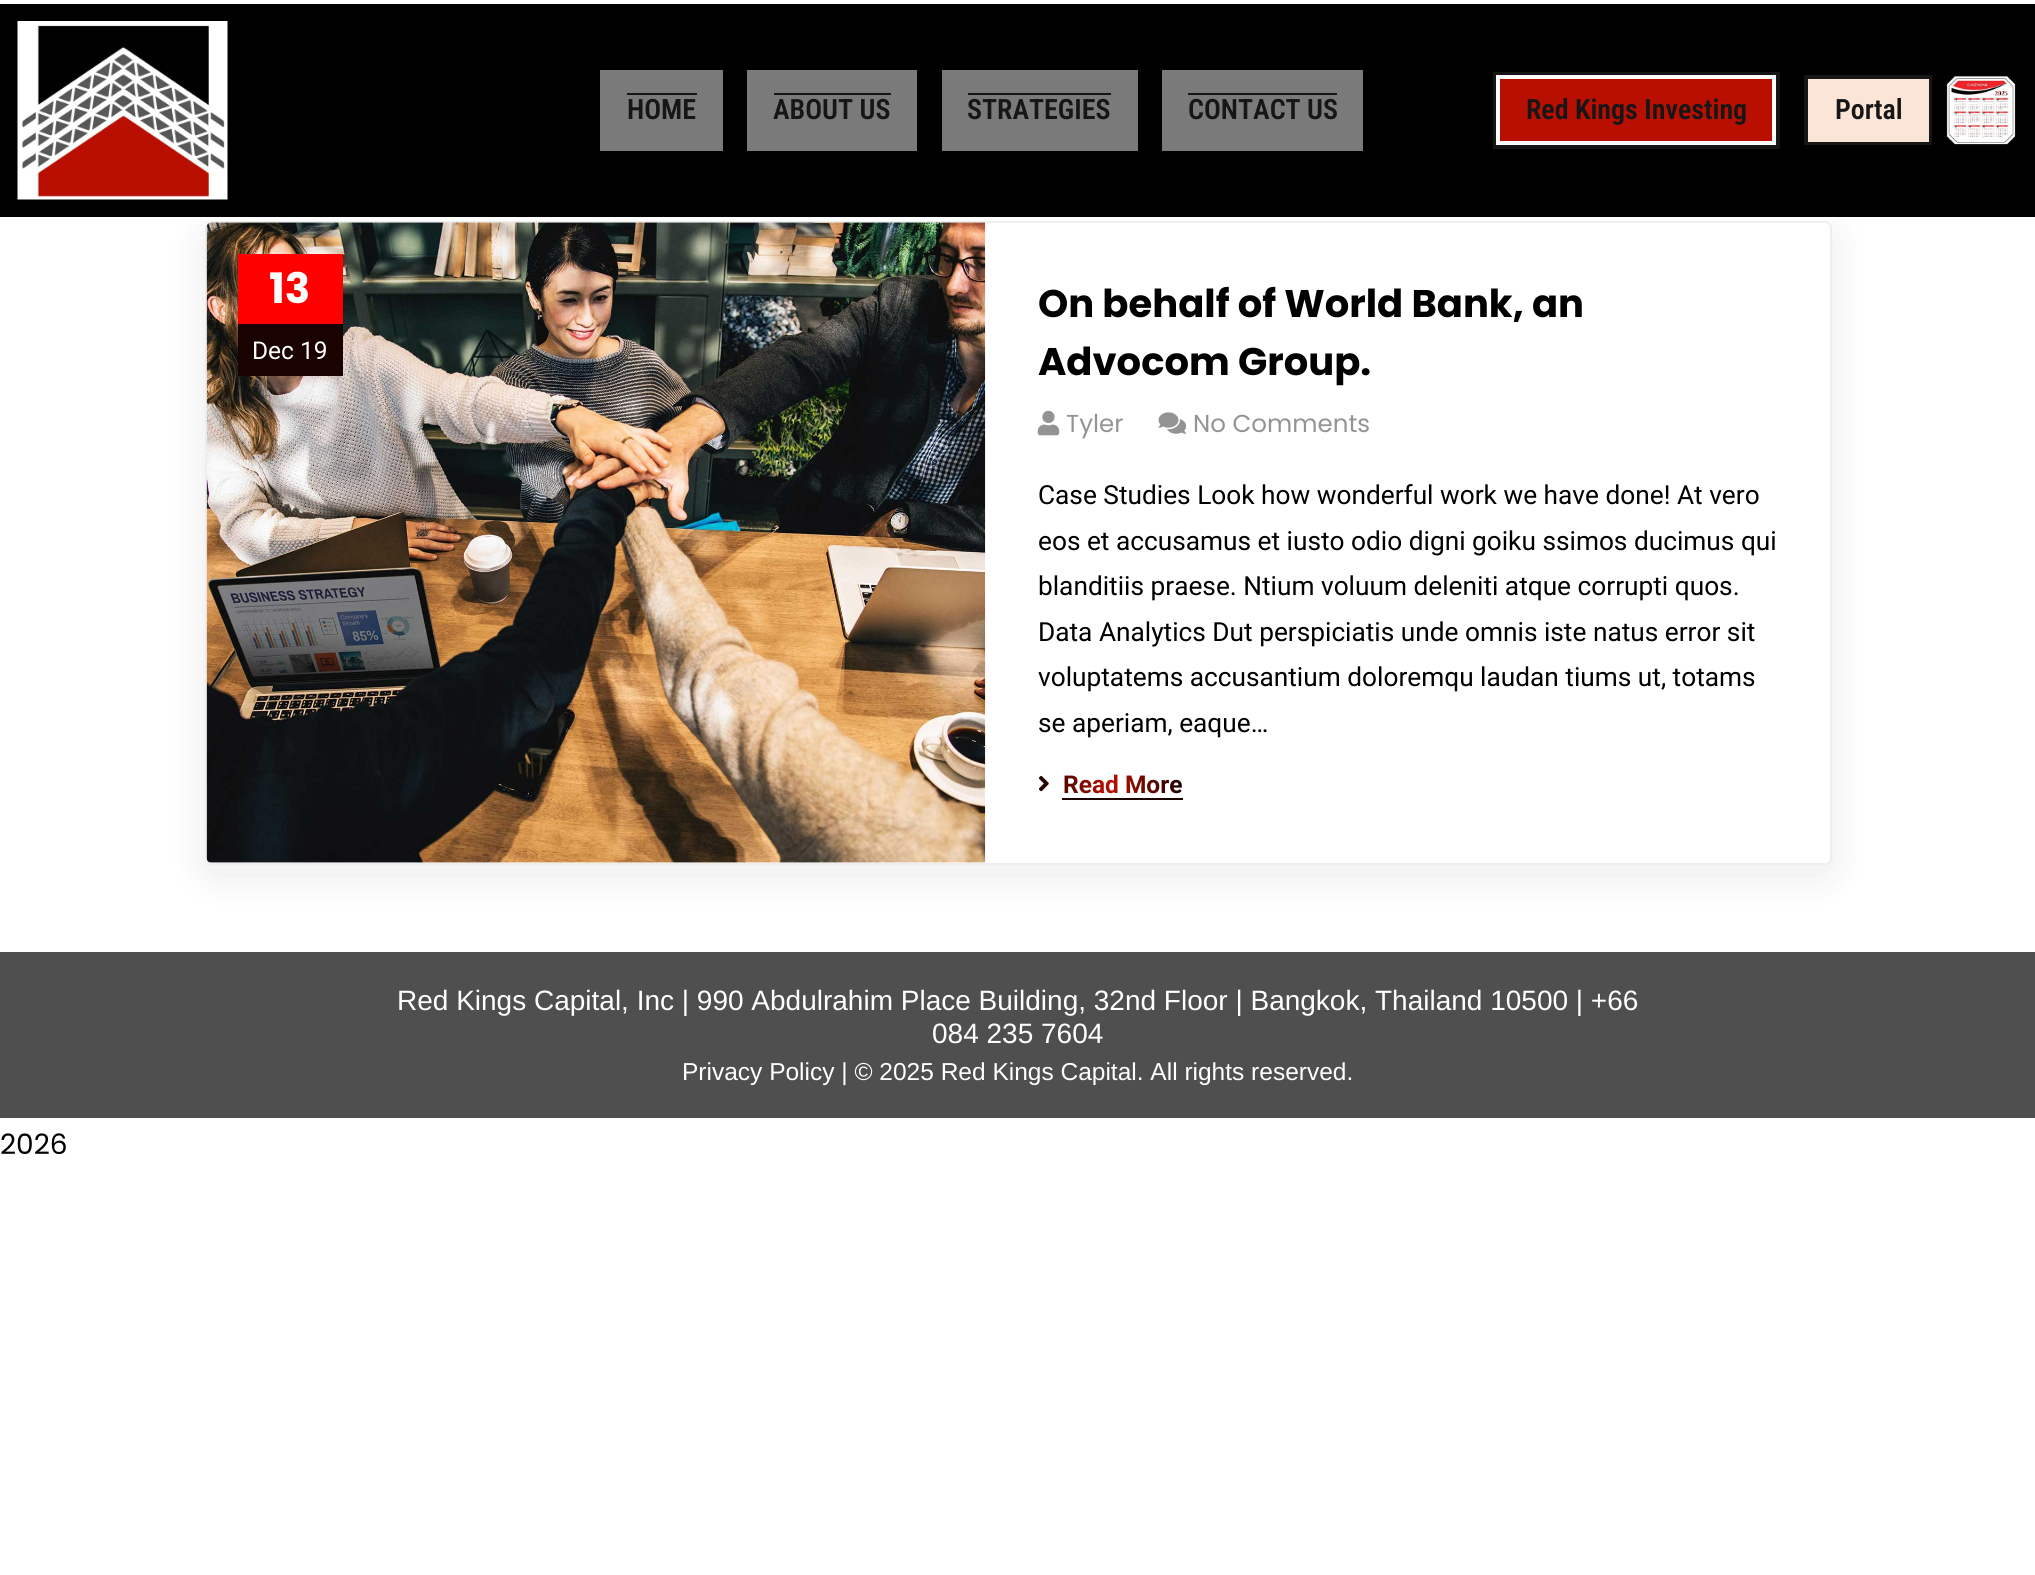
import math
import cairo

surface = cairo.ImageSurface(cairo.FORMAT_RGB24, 2035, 1575)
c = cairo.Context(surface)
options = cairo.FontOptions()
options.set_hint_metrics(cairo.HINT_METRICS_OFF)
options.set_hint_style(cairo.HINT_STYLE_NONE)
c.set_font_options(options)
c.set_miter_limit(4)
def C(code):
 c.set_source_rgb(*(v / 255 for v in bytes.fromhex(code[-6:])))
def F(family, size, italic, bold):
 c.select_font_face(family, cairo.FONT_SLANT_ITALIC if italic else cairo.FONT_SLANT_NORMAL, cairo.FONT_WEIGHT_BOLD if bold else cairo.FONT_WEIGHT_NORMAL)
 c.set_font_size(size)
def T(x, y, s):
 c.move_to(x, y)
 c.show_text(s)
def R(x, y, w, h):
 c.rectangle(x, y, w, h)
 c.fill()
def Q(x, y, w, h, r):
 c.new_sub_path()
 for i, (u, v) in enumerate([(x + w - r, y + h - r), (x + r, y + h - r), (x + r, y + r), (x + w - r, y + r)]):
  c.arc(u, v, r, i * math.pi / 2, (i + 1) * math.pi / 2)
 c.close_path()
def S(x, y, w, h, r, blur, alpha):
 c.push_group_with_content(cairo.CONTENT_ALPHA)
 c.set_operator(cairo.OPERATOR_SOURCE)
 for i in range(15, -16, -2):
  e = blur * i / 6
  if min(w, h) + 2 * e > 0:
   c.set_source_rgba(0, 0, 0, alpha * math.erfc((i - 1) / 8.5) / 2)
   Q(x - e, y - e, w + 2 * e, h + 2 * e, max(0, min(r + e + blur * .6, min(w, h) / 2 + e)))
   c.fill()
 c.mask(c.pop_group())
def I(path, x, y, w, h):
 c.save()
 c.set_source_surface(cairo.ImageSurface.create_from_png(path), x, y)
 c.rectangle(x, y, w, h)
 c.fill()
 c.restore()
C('ffffff')
c.paint()
C('0b0b0b')
S(205,231,1627,644,7,21,.08)
C('000000')
R(0,4,2035,213)
C('ffffff')
R(202,217,1633,4)
I('1.png',17,21,211,179)
C('7a7a7a')
R(600,70,123,81)
F('Roboto Condensed SemiBold',28,0,0)
C('171616')
T(627,119,'HOME')
R(627,93,70,2)
C('7a7a7a')
R(747,70,170,81)
C('171616')
T(773,119,'ABOUT US')
R(774,93,117,2)
C('7a7a7a')
R(942,70,196,81)
C('171616')
T(967,119,'STRATEGIES')
R(968,93,143,2)
C('7a7a7a')
R(1162,70,201,81)
C('171616')
T(1188,119,'CONTACT US')
R(1188,93,149,2)
c.rectangle(1495,74,283,73)
c.set_line_width(4)
c.stroke()
C('b90f00')
c.rectangle(1498,77,276,66)
c.fill_preserve()
C('ffffff')
c.stroke()
C('171616')
T(1526,119,'Red Kings Investing')
c.rectangle(1806,77,124,66)
c.stroke()
C('fbe5d6')
R(1808,79,121,63)
C('171616')
T(1835,119,'Portal')
I('2.png',1946,75,70,70)
C('ffffff')
Q(206,222,1625,642,6)
c.fill_preserve()
C('eeeeef')
c.set_line_width(2)
c.stroke()
I('3.png',206,222,780,641)
C('ff0000')
R(238,254,105,70)
F('Poppins',42,0,1)
C('ffffff')
T(269,303,'13')
C('190200')
R(238,324,105,52)
F('Roboto',24.5,0,0)
C('ffffff')
T(252,359,'Dec 19')
F('Poppins',38.5,0,1)
C('000000')
T(1038,317,'On behalf of World Bank, an')
T(1038,375,'Advocom Group.')
I('4.png',1037,410,23,26)
F('Poppins',24.5,0,0)
C('939393')
T(1066,432,'Tyler')
I('5.png',1158,412,29,22)
T(1193,432,'No Comments')
F('Roboto',26.25,0,0)
C('000000')
T(1038,504,'Case Studies Look how wonderful work we have done! At vero')
T(1038,550,'eos et accusamus et iusto odio digni goiku ssimos ducimus qui')
T(1038,595,'blanditiis praese. Ntium voluum deleniti atque corrupti quos.')
T(1038,641,'Data Analytics Dut perspiciatis unde omnis iste natus error sit')
T(1038,686,'voluptatems accusantium doloremqu laudan tiums ut, totams')
T(1038,732,'se aperiam, eaque…')
I('6.png',1039,775,10,17)
F('Roboto',24.5,0,1)
gradient = cairo.LinearGradient(1038,784,1182,784)
gradient.add_color_stop_rgba(0,0.098,0.008,0,1)
gradient.add_color_stop_rgba(.5,0.737,0.059,0,1)
gradient.add_color_stop_rgba(1,0.098,0.008,0,1)
c.set_source(gradient)
T(1063,793,'Read More')
C('190200')
R(1062,798,121,2)
C('4f4f4f')
R(0,952,2035,166)
F('Liberation Sans',28,0,0)
C('ffffff')
T(397,1010,'Red Kings Capital, Inc | 990 Abdulrahim Place Building, 32nd Floor | Bangkok, Thailand 10500 | +66')
T(932,1043,'084 235 7604')
F('Liberation Sans',24.5,0,0)
T(682,1080,'Privacy Policy | © 2025 Red Kings Capital. All rights reserved.')
F('Poppins',28,0,0)
C('000000')
T(0,1154,'2026')
surface.write_to_png('o.png')
